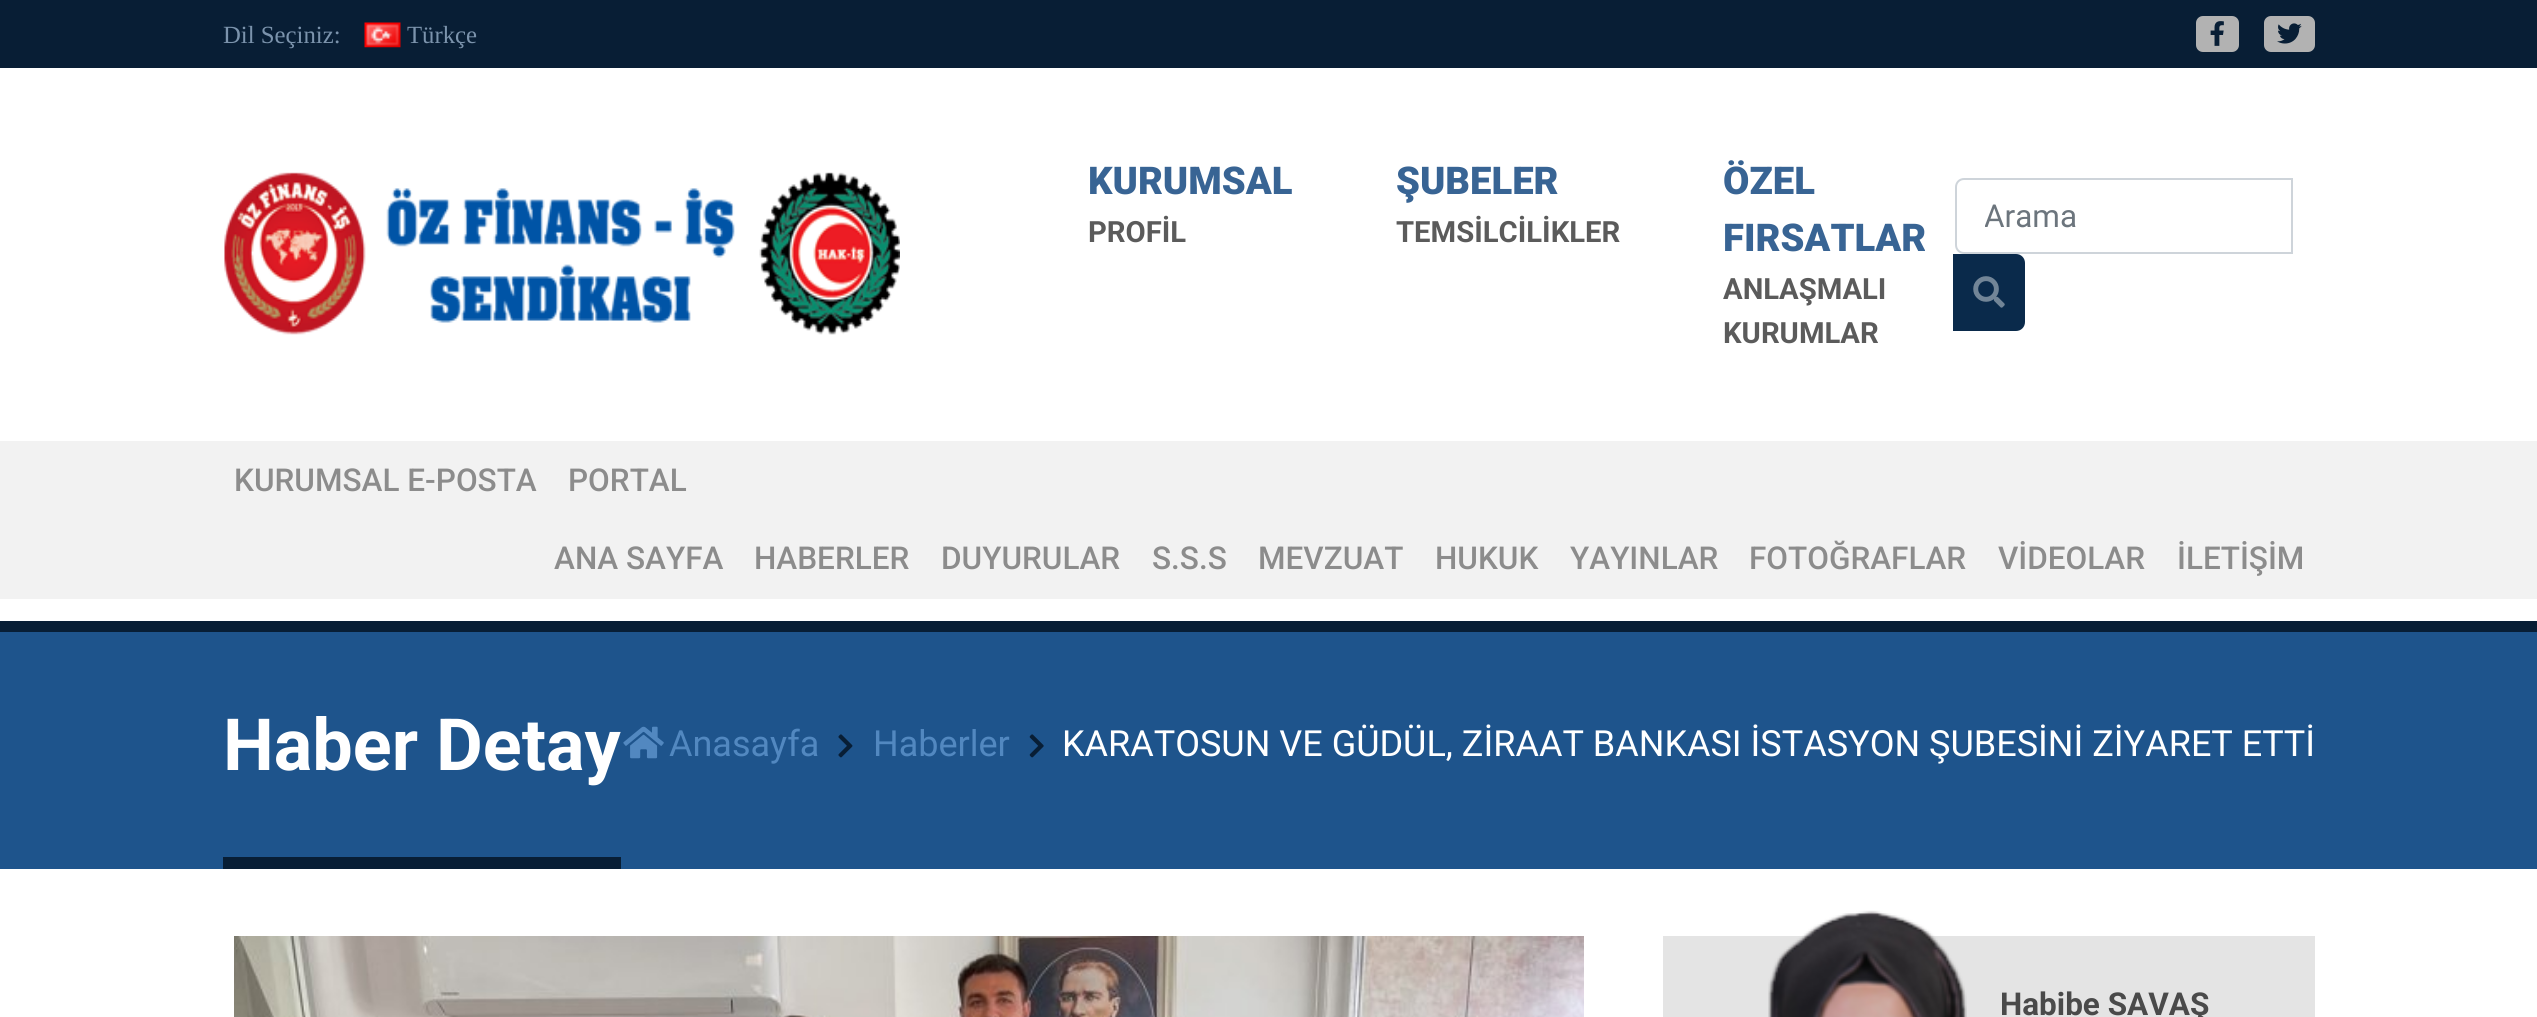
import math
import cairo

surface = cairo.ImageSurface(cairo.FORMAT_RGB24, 2537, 1017)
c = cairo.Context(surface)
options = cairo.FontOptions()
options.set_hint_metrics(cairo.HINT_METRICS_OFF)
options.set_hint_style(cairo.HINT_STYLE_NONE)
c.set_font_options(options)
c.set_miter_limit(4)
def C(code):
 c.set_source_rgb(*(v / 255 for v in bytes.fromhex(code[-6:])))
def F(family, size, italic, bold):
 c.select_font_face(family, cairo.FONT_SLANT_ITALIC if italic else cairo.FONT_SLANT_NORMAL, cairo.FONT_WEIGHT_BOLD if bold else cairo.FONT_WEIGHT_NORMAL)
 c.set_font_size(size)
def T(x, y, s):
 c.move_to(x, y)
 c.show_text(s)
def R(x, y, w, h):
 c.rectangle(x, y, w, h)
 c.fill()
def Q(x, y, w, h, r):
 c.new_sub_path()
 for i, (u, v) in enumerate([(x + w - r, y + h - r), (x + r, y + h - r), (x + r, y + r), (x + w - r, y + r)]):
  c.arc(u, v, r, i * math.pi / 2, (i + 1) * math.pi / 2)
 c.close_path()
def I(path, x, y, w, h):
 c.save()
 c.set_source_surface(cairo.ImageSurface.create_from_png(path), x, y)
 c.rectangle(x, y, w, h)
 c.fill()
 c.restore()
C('ffffff')
c.paint()
C('081e35')
R(0,0,2537,68)
F('Liberation Serif',24.75,0,0)
C('7b93ac')
T(223,43,'Dil Seçiniz:')
I('1.png',364,22,37,26)
T(407,43,'Türkçe')
C('b2b2b2')
Q(2196,16,43,36,7)
c.fill()
I('2.png',2210,21,14,25)
Q(2264,16,51,36,7)
c.fill()
I('3.png',2277,23,25,21)
I('4.png',224,172,676,163)
F('Roboto Black',38.25,0,0)
C('386494')
T(1088,194,'KURUMSAL')
F('Roboto',29.25,0,1)
C('5b5b5b')
T(1088,242,'PROFİL')
F('Roboto Black',38.25,0,0)
C('386494')
T(1396,194,'ŞUBELER')
F('Roboto',29.25,0,1)
C('5b5b5b')
T(1396,242,'TEMSİLCİLİKLER')
F('Roboto Black',38.25,0,0)
C('386494')
T(1723,194,'ÖZEL')
T(1723,251,'FIRSATLAR')
F('Roboto',29.25,0,1)
C('5b5b5b')
T(1723,299,'ANLAŞMALI')
T(1723,343,'KURUMLAR')
c.new_path()
c.move_to(1964,179)
c.line_to(2292,179)
c.line_to(2292,253)
c.line_to(1964,253)
c.curve_to(1959.5,253,1956,249.5,1956,245)
c.line_to(1956,187)
c.curve_to(1956,182.5,1959.5,179,1964,179)
c.close_path()
C('ced4da')
c.stroke()
c.save()
c.rectangle(1985,198,270,36)
c.clip()
F('Roboto',31.5,0,0)
C('6c757d')
T(1984,227,'Arama')
c.restore()
C('0a2a4b')
c.new_path()
c.move_to(1954,255)
c.line_to(2016,255)
c.curve_to(2020.5,255,2024,258.5,2024,263)
c.line_to(2024,322)
c.curve_to(2024,326.5,2020.5,330,2016,330)
c.line_to(1954,330)
c.close_path()
c.fill_preserve()
c.stroke()
I('5.png',1973,276,32,32)
C('f2f2f2')
R(0,441,2537,158)
F('Roboto Medium',31.5,0,0)
C('8c8c8c')
T(234,491,'KURUMSAL E-POSTA')
T(568,491,'PORTAL')
T(554,569,'ANA SAYFA')
T(754,569,'HABERLER')
T(941,569,'DUYURULAR')
T(1152,569,'S.S.S')
T(1258,569,'MEVZUAT')
T(1435,569,'HUKUK')
T(1570,569,'YAYINLAR')
T(1749,569,'FOTOĞRAFLAR')
T(1998,569,'VİDEOLAR')
T(2177,569,'İLETİŞİM')
C('1e548c')
R(0,632,2537,237)
C('081e35')
R(0,621,2537,11)
R(223,857,398,12)
F('Roboto',72,0,1)
C('ffffff')
T(223,770,'Haber Detay')
I('6.png',623,726,41,33)
F('Roboto',36,0,0)
C('5288c0')
T(669,756,'Anasayfa')
I('7.png',838,734,15,24)
T(873,756,'Haberler')
I('8.png',1029,734,15,24)
C('ffffff')
T(1062,756,'KARATOSUN VE GÜDÜL, ZİRAAT BANKASI İSTASYON ŞUBESİNİ ZİYARET ETTİ')
I('9.png',234,936,1350,81)
C('e4e4e4')
R(1663,936,652,81)
I('10.png',1768,910,199,107)
F('Roboto',31.5,0,1)
C('4a4a4a')
T(2000,1015,'Habibe SAVAŞ')
surface.write_to_png('o.png')
